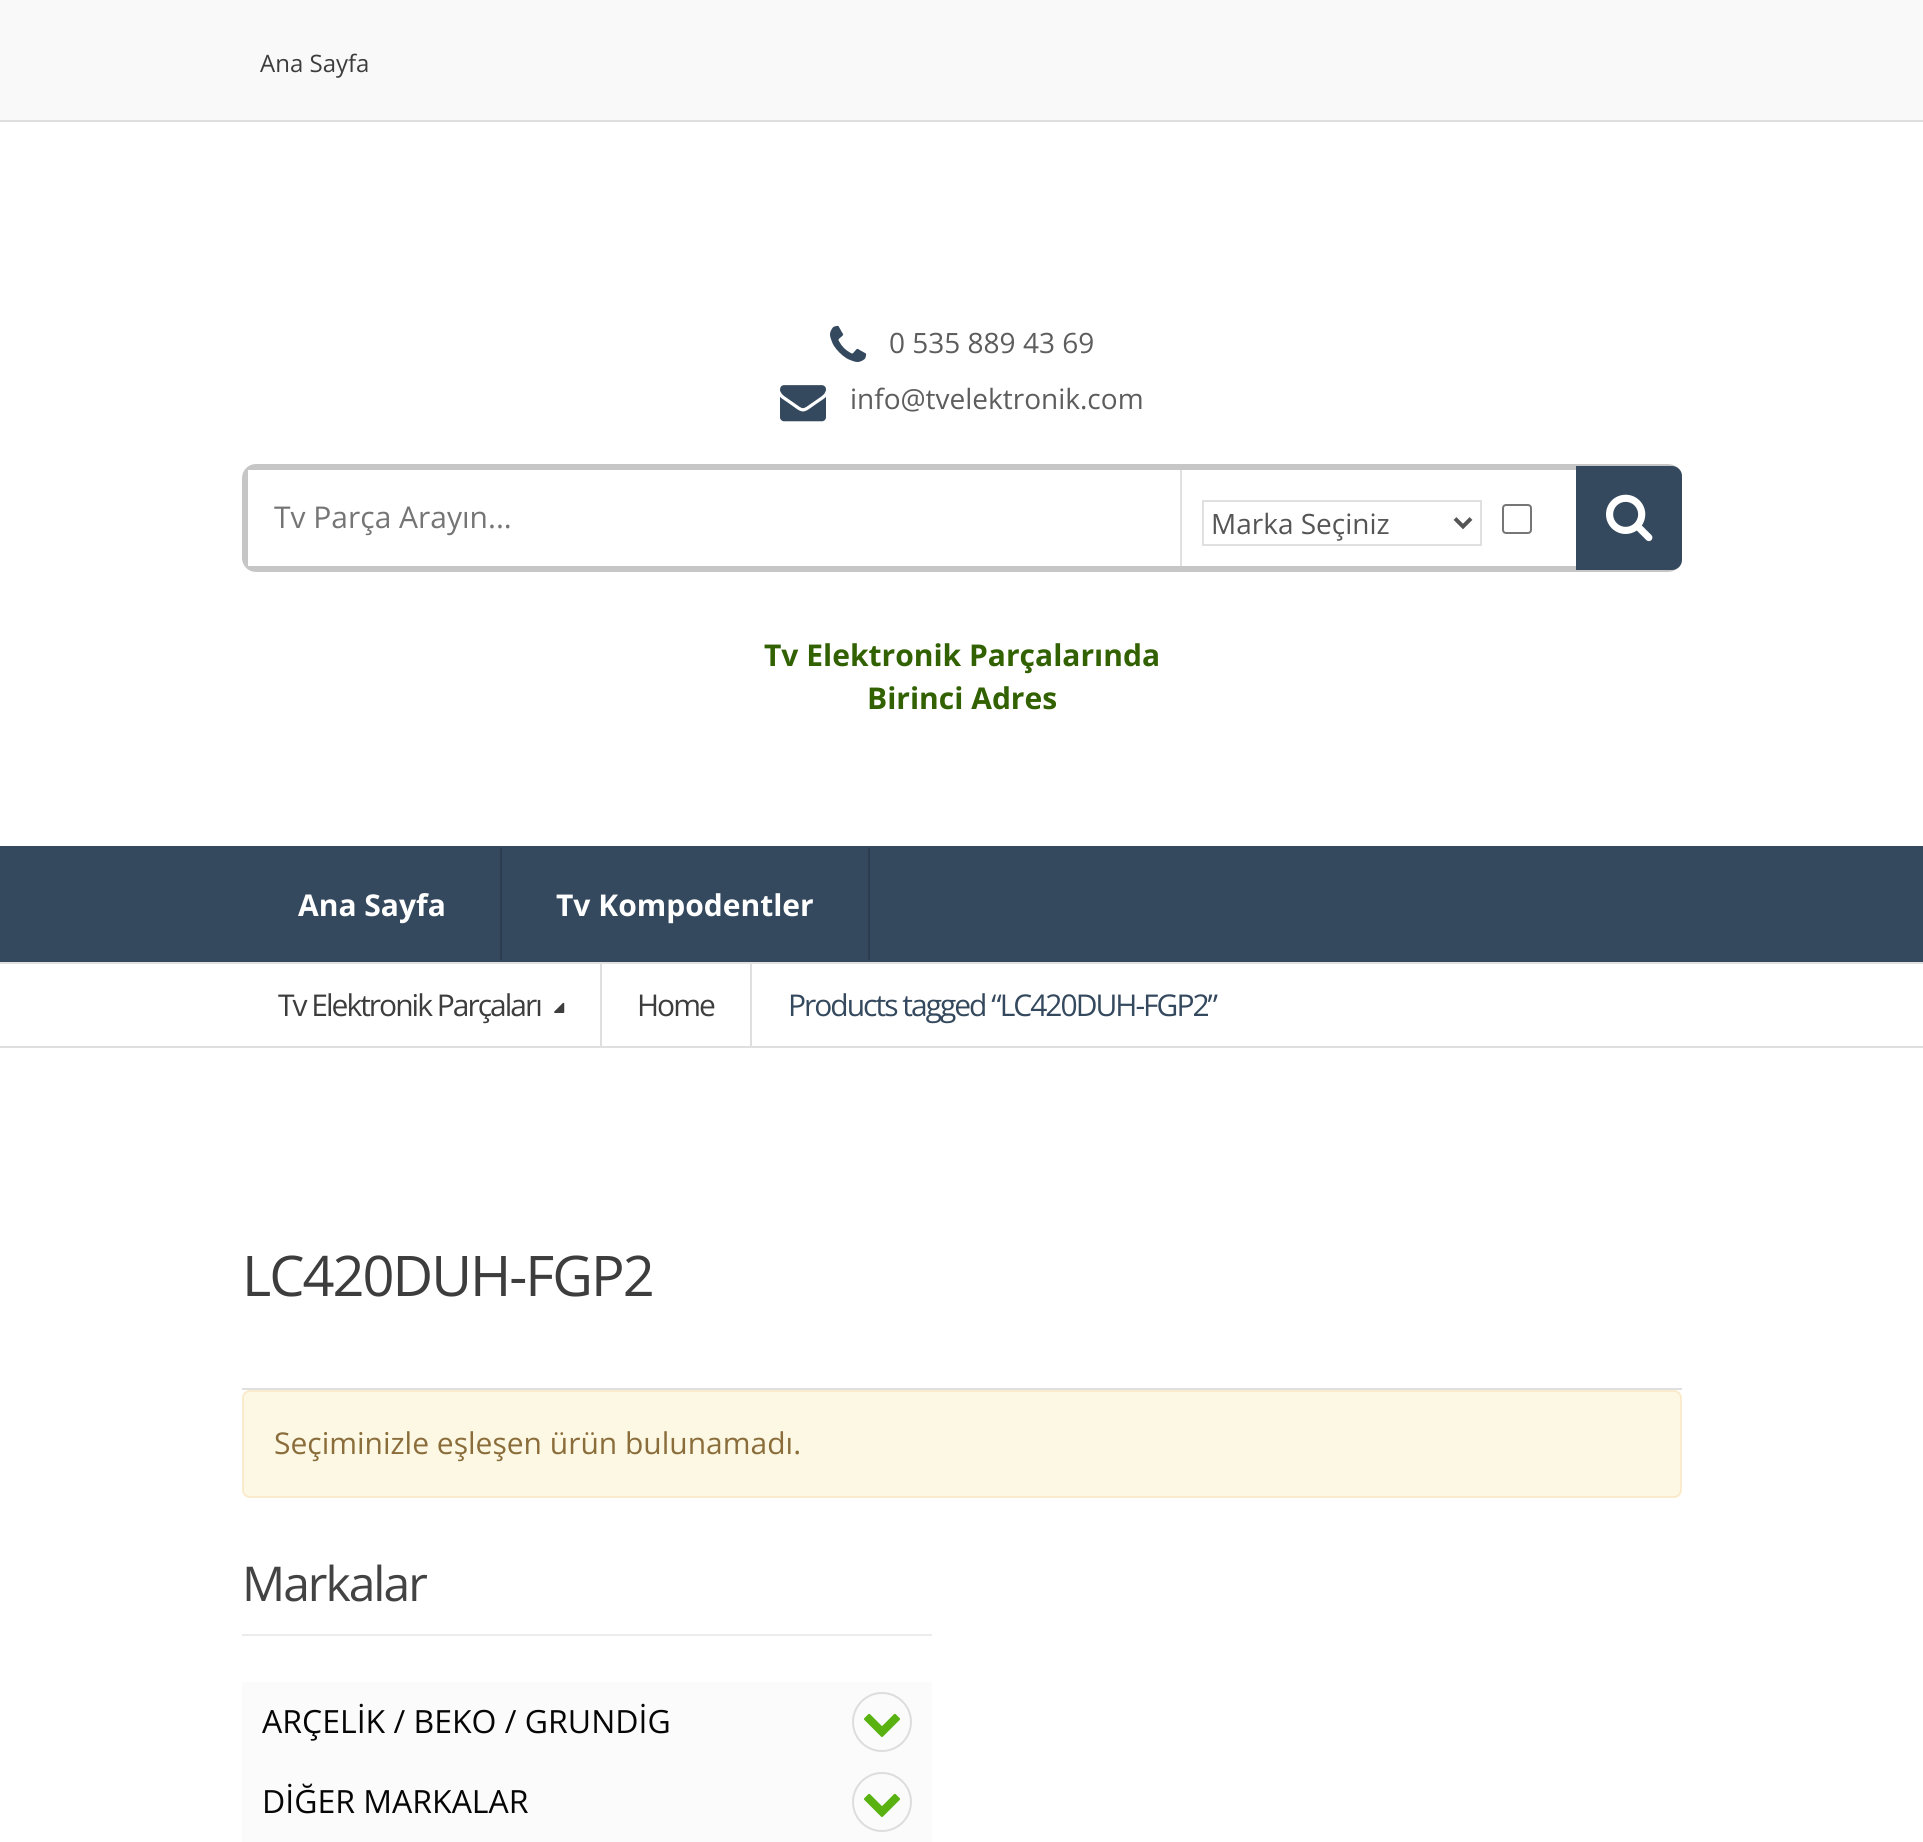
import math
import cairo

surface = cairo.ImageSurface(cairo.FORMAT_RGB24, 1923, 1842)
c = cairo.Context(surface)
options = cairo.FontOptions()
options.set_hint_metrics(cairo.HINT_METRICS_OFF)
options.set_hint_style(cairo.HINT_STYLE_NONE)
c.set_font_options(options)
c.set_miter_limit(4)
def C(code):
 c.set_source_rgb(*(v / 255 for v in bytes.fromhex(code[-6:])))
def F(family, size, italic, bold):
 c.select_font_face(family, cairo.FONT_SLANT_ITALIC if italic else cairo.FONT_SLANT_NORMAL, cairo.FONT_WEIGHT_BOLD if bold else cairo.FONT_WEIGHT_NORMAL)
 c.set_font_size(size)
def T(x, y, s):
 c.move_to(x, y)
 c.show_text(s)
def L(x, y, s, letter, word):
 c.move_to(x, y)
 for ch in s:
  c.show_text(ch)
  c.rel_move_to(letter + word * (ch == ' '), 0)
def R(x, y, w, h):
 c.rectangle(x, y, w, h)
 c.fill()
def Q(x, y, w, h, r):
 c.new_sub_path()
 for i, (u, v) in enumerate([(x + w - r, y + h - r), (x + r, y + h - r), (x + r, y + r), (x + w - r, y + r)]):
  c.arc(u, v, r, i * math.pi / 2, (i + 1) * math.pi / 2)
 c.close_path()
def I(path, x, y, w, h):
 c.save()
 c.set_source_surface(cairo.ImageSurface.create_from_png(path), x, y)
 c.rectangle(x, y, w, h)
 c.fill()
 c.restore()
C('ffffff')
c.paint()
C('f9f9f9')
R(0,0,1923,120)
C('e0dfdf')
R(0,120,1923,2)
F('Open Sans',24,0,0)
C('3d3d3d')
T(260,72,'Ana Sayfa')
I('1.png',830,325,37,37)
F('Open Sans',28,0,0)
C('5d5d5d')
T(889,353,'0 535 889 43 69')
I('2.png',780,385,46,37)
T(850,409,'info@tvelektronik.com')
Q(245,467,1434,102,11)
C('c6c6c6')
c.set_line_width(6)
c.stroke()
C('ffffff')
R(248,470,8,96)
F('Open Sans',30,0,0)
C('757575')
T(274,528,'Tv Parça Arayın...')
C('e0e0e0')
R(1180,470,2,96)
c.rectangle(1203,501,278,44)
c.set_line_width(2)
c.stroke()
c.new_path()
c.move_to(1455,518.5)
c.line_to(1463,526.5)
c.line_to(1471,518.5)
C('555555')
c.set_line_width(4)
c.stroke()
F('Open Sans',28,0,0)
T(1211,534,'Marka Seçiniz')
Q(1503,505,28,28,3)
C('767676')
c.set_line_width(2)
c.stroke()
C('34495e')
c.new_path()
c.move_to(1576,466)
c.line_to(1672,466)
c.curve_to(1677.5,466,1682,470.5,1682,476)
c.line_to(1682,560)
c.curve_to(1682,565.5,1677.5,570,1672,570)
c.line_to(1576,570)
c.close_path()
c.fill()
I('3.png',1606,494,47,48)
F('Open Sans',30,0,1)
C('316100')
T(764,666,'Tv Elektronik Parçalarında')
T(867,709,'Birinci Adres')
C('34495e')
R(0,846,1923,116)
C('2b3c4e')
R(500,848,2,112)
C('ffffff')
T(298,916,'Ana Sayfa')
C('2b3c4e')
R(868,848,2,112)
C('ffffff')
T(556,916,'Tv Kompodentler')
C('e0e0e0')
R(0,962,1923,2)
C('e0dfdf')
R(0,1046,1923,2)
R(600,964,2,82)
F('Open Sans',30,0,0)
C('3d3d3d')
L(278,1016,'Tv Elektronik Parçaları',-2,0)
I('4.png',554,1002,11,11)
C('e0dfdf')
R(750,964,2,82)
C('3d3d3d')
L(637,1016,'Home',-2,0)
C('34495e')
L(788,1016,'Products tagged “LC420DUH-FGP2”',-2,0)
C('e0dfdf')
R(242,1388,1440,2)
F('Open Sans',56,0,0)
C('3d3d3d')
L(242,1296,'LC420DUH-FGP2',-2,0)
C('fcf8e3')
Q(243,1391,1438,106,7)
c.fill_preserve()
C('faebcc')
c.stroke()
F('Open Sans',30,0,0)
C('8a6d3b')
T(274,1454,'Seçiminizle eşleşen ürün bulunamadı.')
C('ececec')
R(242,1634,690,2)
F('Open Sans',48,0,0)
C('434343')
L(242,1601,'Markalar',-2,0)
C('fbfbfc')
R(242,1682,690,160)
F('Open Sans',32,0,0)
C('060606')
T(262,1733,'ARÇELİK / BEKO / GRUNDİG')
c.new_path()
c.arc(882,1722,29,0,2 * math.pi)
C('dddddd')
c.stroke()
I('5.png',864,1713,36,24)
C('060606')
T(262,1813,'DİĞER MARKALAR')
c.new_path()
c.arc(882,1802,29,0,2 * math.pi)
C('dddddd')
c.stroke()
I('5.png',864,1793,36,24)
surface.write_to_png('o.png')
